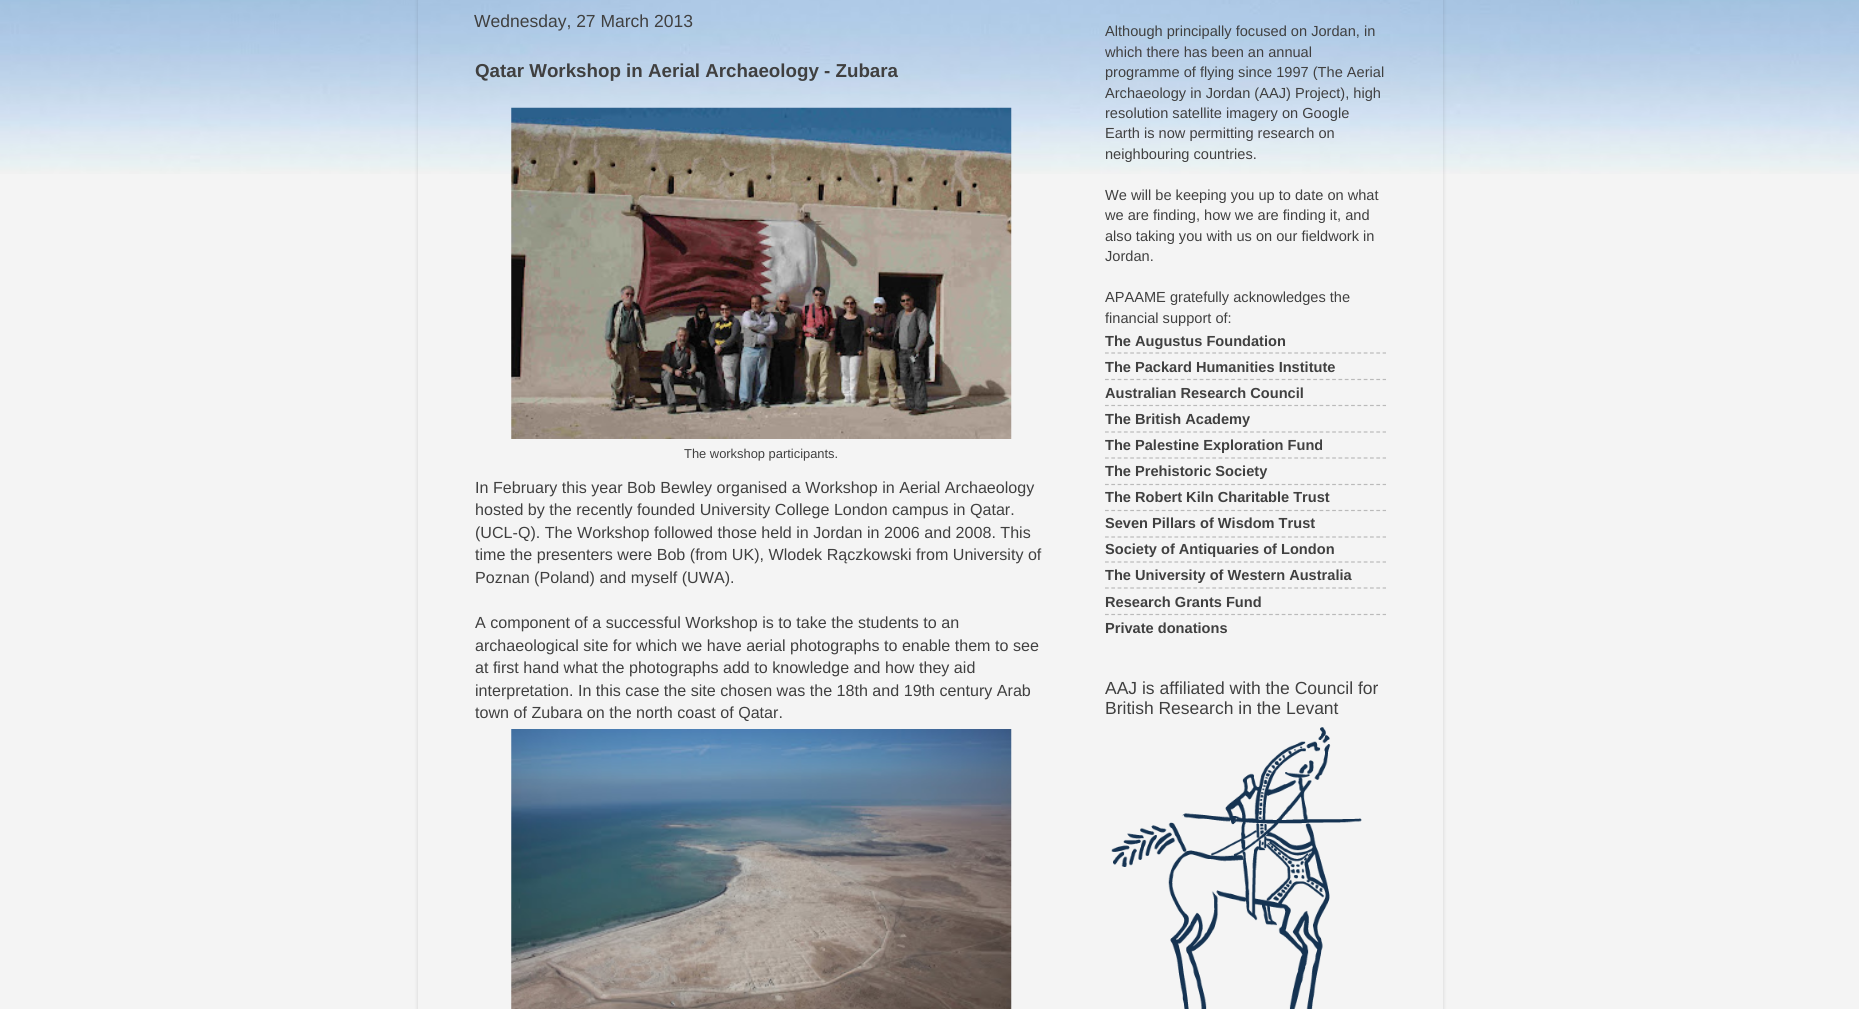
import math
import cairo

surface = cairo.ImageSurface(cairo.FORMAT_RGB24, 1859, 1009)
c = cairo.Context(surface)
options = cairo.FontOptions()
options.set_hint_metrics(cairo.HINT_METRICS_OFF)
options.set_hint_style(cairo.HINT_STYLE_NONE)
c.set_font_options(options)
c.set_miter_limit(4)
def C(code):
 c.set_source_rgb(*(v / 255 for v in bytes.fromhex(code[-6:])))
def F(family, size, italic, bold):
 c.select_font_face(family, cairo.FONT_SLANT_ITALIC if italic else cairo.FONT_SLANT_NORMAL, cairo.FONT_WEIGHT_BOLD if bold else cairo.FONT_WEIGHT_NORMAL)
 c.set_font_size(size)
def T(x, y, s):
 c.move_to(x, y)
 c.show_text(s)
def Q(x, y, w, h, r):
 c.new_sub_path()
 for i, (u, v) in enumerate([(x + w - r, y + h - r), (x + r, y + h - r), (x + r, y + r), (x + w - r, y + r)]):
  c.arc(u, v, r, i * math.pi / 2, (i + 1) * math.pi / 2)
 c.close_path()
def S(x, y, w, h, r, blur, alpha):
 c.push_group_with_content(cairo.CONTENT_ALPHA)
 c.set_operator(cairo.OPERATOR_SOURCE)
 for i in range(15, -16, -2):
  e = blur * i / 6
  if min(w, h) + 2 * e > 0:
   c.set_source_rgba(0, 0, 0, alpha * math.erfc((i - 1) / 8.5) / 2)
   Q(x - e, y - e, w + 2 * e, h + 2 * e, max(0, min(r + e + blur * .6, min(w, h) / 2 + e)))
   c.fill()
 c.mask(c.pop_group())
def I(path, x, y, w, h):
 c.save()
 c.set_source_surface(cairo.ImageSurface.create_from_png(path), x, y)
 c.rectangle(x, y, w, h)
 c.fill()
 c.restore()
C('f4f4f4')
c.paint()
I('1.png',0,0,1859,174)
c.save()
c.set_fill_rule(cairo.FILL_RULE_EVEN_ODD)
c.new_path()
c.move_to(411,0)
c.line_to(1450,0)
c.line_to(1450,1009)
c.line_to(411,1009)
c.close_path()
c.move_to(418,-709)
c.line_to(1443,-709)
c.line_to(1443,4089)
c.line_to(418,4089)
c.close_path()
c.clip()
C('000000')
S(418,-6,1025,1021,0,2,.15)
c.restore()
F('Liberation Sans',17.5,0,0)
C('404040')
T(474,27,'Wednesday, 27 March 2013')
F('Liberation Sans',18.75,0,1)
T(475,77,'Qatar Workshop in Aerial Archaeology - Zubara')
I('2.png',511,107,501,332)
F('Liberation Sans',12.9,0,0)
T(684,458,'The workshop participants.')
F('Liberation Sans',16.1,0,0)
T(475,493,'In February this year Bob Bewley organised a Workshop in Aerial Archaeology')
T(475,515,'hosted by the recently founded University College London campus in Qatar.')
T(475,538,'(UCL-Q). The Workshop followed those held in Jordan in 2006 and 2008. This')
T(475,560,'time the presenters were Bob (from UK), Wlodek Rączkowski from University of')
T(475,583,'Poznan (Poland) and myself (UWA).')
T(475,628,'A component of a successful Workshop is to take the students to an')
T(475,651,'archaeological site for which we have aerial photographs to enable them to see')
T(475,673,'at first hand what the photographs add to knowledge and how they aid')
T(475,696,'interpretation. In this case the site chosen was the 18th and 19th century Arab')
T(475,718,'town of Zubara on the north coast of Qatar.')
I('3.png',511,729,501,280)
F('Liberation Sans',14.6,0,0)
T(1105,36,'Although principally focused on Jordan, in')
T(1105,57,'which there has been an annual')
T(1105,77,'programme of flying since 1997 (The Aerial')
T(1105,98,'Archaeology in Jordan (AAJ) Project), high')
T(1105,118,'resolution satellite imagery on Google')
T(1105,138,'Earth is now permitting research on')
T(1105,159,'neighbouring countries.')
T(1105,200,'We will be keeping you up to date on what')
T(1105,220,'we are finding, how we are finding it, and')
T(1105,241,'also taking you with us on our fieldwork in')
T(1105,261,'Jordan.')
T(1105,302,'APAAME gratefully acknowledges the')
T(1105,323,'financial support of:')
F('Liberation Sans',14.6,0,1)
T(1105,346,'The Augustus Foundation')
c.new_path()
c.move_to(1105,353)
c.line_to(1386,353)
C('bababa')
c.set_line_width(1.2)
c.set_dash([3.75,2.56])
c.stroke()
C('404040')
T(1105,372,'The Packard Humanities Institute')
c.new_path()
c.move_to(1105,379.5)
c.line_to(1386,379.5)
C('bababa')
c.stroke()
C('404040')
T(1105,398,'Australian Research Council')
c.new_path()
c.move_to(1105,405.5)
c.line_to(1386,405.5)
C('bababa')
c.stroke()
C('404040')
T(1105,424,'The')
T(1135,424,'British Academy')
c.new_path()
c.move_to(1105,432)
c.line_to(1386,432)
C('bababa')
c.stroke()
C('404040')
T(1105,450,'The Palestine Exploration Fund')
c.new_path()
c.move_to(1105,458)
c.line_to(1386,458)
C('bababa')
c.stroke()
C('404040')
T(1105,476,'The Prehistoric Society')
c.new_path()
c.move_to(1105,484.5)
c.line_to(1386,484.5)
C('bababa')
c.stroke()
C('404040')
T(1105,502,'The Robert Kiln Charitable Trust')
c.new_path()
c.move_to(1105,510.5)
c.line_to(1386,510.5)
C('bababa')
c.stroke()
C('404040')
T(1105,528,'Seven Pillars of Wisdom Trust')
c.new_path()
c.move_to(1105,537)
c.line_to(1386,537)
C('bababa')
c.stroke()
C('404040')
T(1105,554,'Society of Antiquaries of London')
c.new_path()
c.move_to(1105,562)
c.line_to(1386,562)
C('bababa')
c.stroke()
C('404040')
T(1105,580,'The University of Western Australia')
c.new_path()
c.move_to(1105,588)
c.line_to(1386,588)
C('bababa')
c.stroke()
C('404040')
T(1105,607,'Research Grants Fund')
c.new_path()
c.move_to(1105,614.5)
c.line_to(1386,614.5)
C('bababa')
c.stroke()
C('404040')
T(1105,633,'Private donations')
F('Liberation Sans',17.5,0,0)
T(1105,694,'AAJ is affiliated with the Council for')
T(1105,714,'British Research in the Levant')
I('4.png',1111,727,251,282)
surface.write_to_png('o.png')
